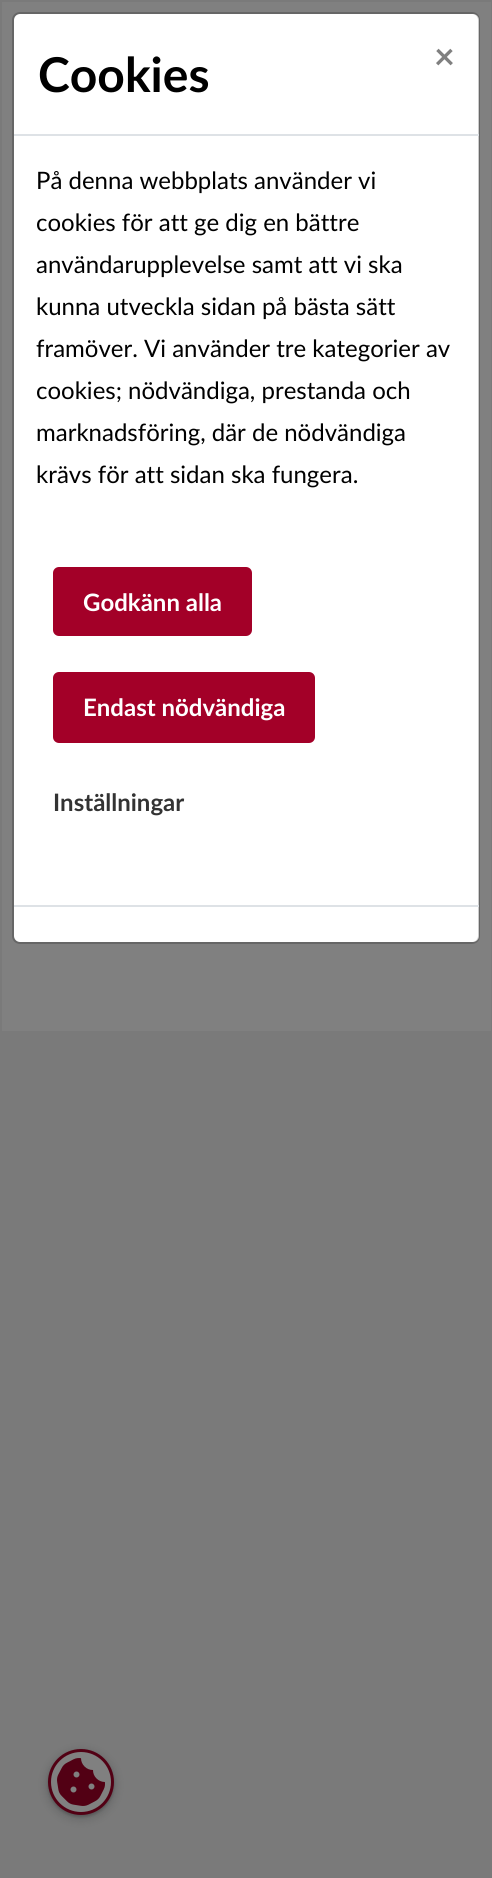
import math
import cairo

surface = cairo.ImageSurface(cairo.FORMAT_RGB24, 492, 1878)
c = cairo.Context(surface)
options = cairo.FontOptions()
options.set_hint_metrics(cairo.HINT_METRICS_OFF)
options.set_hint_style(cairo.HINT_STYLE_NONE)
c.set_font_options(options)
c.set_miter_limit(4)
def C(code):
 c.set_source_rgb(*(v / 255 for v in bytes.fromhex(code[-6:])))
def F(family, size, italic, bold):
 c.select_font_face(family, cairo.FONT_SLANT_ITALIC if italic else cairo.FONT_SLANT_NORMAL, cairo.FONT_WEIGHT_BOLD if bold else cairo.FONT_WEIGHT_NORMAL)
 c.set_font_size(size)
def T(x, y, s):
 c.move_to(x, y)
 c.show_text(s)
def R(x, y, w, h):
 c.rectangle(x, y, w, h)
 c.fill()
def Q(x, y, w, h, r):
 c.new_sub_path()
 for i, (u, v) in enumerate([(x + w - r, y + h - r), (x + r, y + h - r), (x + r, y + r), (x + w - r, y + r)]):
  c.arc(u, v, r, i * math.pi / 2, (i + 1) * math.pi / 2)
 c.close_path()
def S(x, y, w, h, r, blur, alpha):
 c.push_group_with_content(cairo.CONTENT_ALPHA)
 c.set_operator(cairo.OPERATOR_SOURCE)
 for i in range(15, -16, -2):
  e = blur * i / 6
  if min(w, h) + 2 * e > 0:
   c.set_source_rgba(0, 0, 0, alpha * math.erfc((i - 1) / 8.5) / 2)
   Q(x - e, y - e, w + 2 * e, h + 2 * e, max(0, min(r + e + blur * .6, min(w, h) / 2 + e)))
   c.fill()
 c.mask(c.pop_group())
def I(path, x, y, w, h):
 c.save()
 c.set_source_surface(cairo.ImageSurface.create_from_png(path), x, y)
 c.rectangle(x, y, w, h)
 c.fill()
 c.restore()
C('7a7a7a')
c.paint()
C('808080')
R(2,2,489,1029)
C('1e2022')
S(45,1749,72,72,36,4.5,.15)
S(48,1751,66,66,33,1.5,.3)
C('808080')
c.arc(81,1782,31.5,0,2 * math.pi)
c.fill_preserve()
C('520014')
c.set_line_width(3)
c.stroke()
I('1.png',57,1758,48,48)
C('ffffff')
Q(14,14,465,928,6)
c.fill()
Q(13,13,466,930,7)
c.set_source_rgba(0,0,0,0.2)
c.set_line_width(2)
c.stroke()
C('dee2e6')
R(14,134,465,2)
F('Lato',48,0,1)
C('000000')
T(38,92,'Cookies')
F('Lato',36,0,1)
C('808080')
T(434,69,'×')
F('Lato',24,0,0)
C('000000')
T(36,189,'På denna webbplats använder vi')
T(36,231,'cookies för att ge dig en bättre')
T(36,273,'användarupplevelse samt att vi ska')
T(36,315,'kunna utveckla sidan på bästa sätt')
T(36,357,'framöver. Vi använder tre kategorier av')
T(36,399,'cookies; nödvändiga, prestanda och')
T(36,441,'marknadsföring, där de nödvändiga')
T(36,483,'krävs för att sidan ska fungera.')
C('a30028')
Q(54.5,568.5,196,66,4.5)
c.fill_preserve()
c.set_line_width(3)
c.stroke()
F('Lato',24,0,1)
C('ffffff')
T(83,611,'Godkänn alla')
C('a30028')
Q(54.5,673.5,259,68,4.5)
c.fill_preserve()
c.stroke()
C('ffffff')
T(83,716,'Endast nödvändiga')
C('333333')
T(53,811,'Inställningar')
C('dee2e6')
R(14,905,465,2)
surface.write_to_png('o.png')
